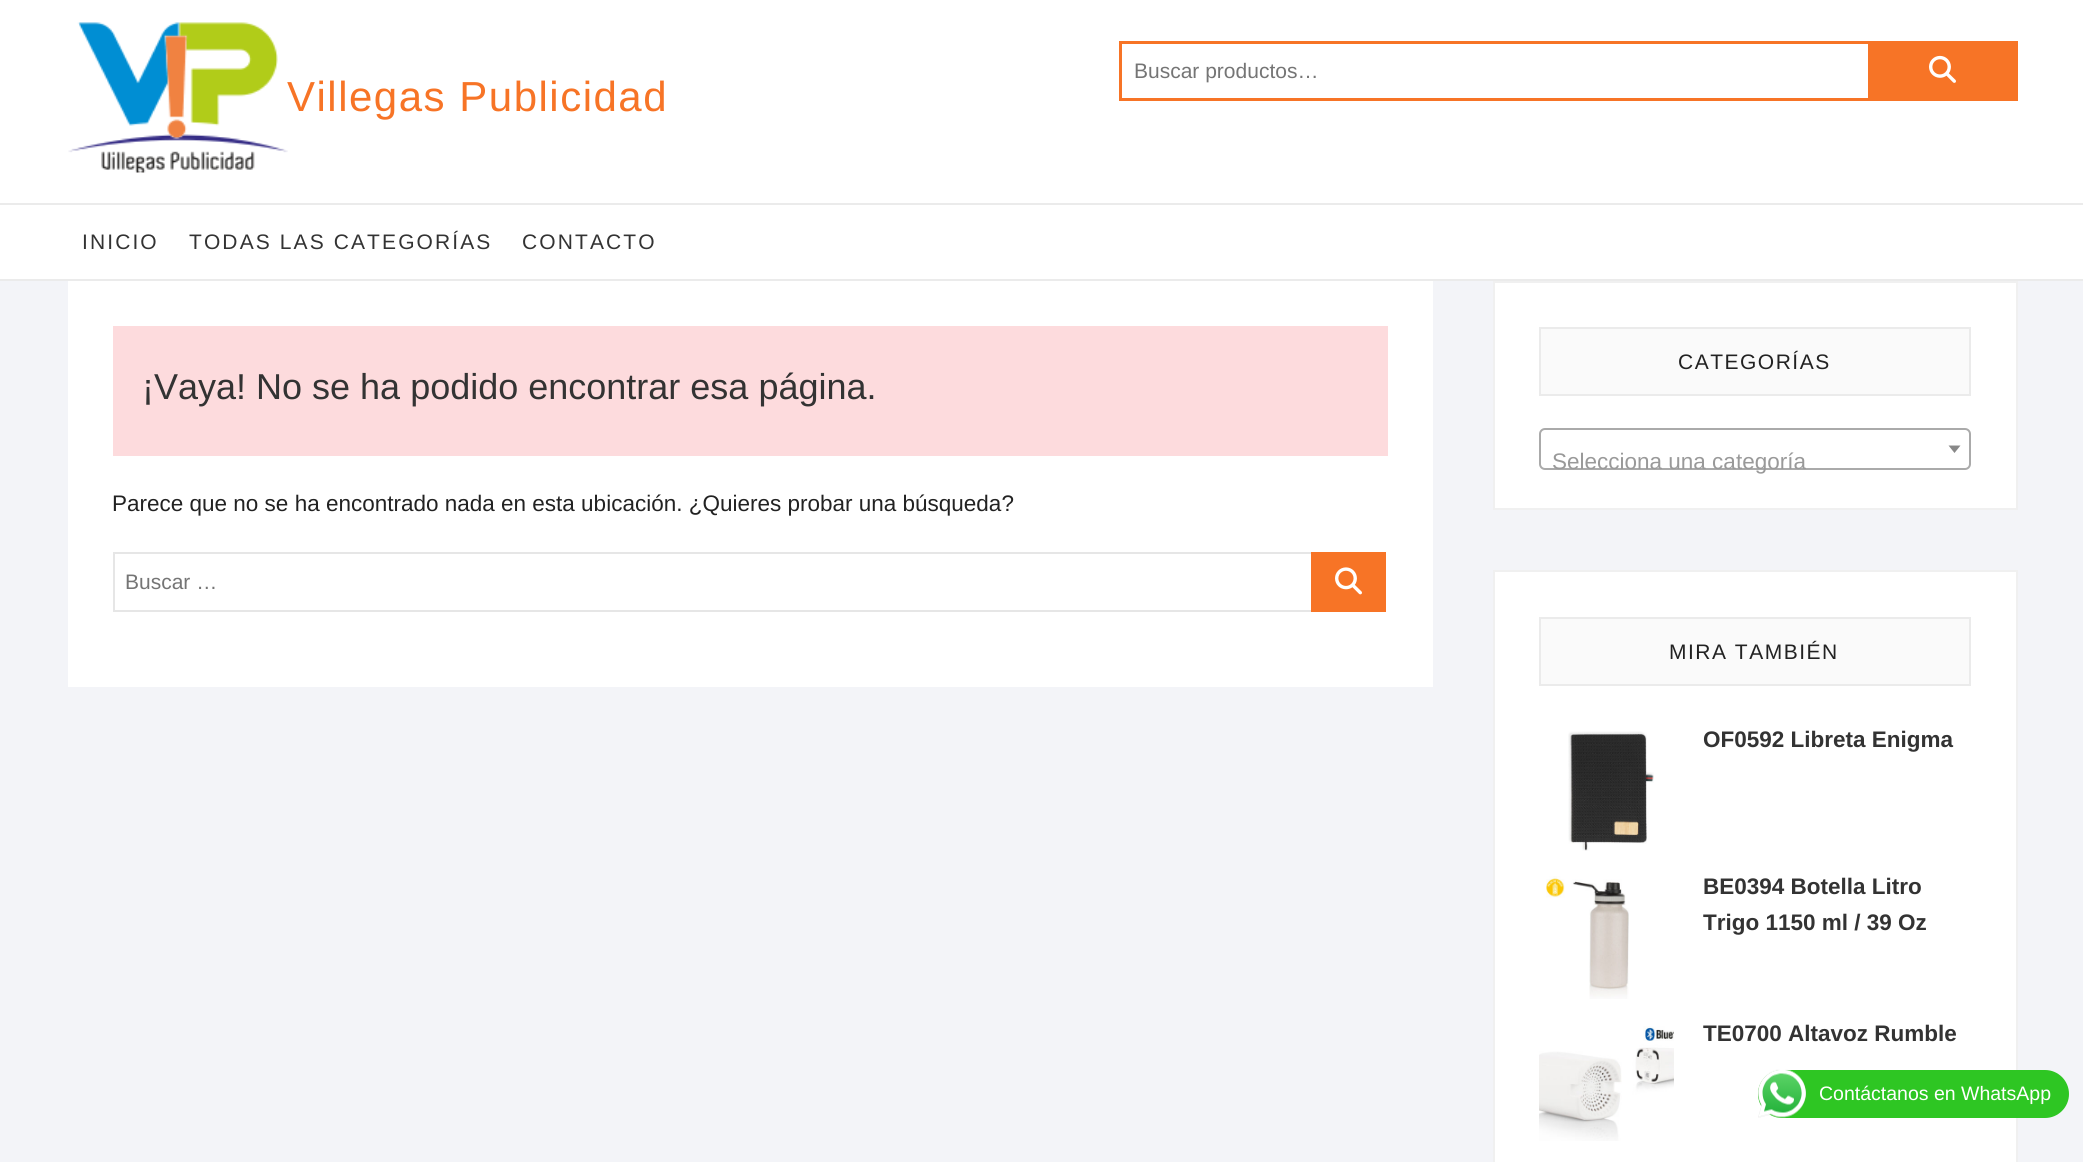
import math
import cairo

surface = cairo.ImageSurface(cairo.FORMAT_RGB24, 2083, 1162)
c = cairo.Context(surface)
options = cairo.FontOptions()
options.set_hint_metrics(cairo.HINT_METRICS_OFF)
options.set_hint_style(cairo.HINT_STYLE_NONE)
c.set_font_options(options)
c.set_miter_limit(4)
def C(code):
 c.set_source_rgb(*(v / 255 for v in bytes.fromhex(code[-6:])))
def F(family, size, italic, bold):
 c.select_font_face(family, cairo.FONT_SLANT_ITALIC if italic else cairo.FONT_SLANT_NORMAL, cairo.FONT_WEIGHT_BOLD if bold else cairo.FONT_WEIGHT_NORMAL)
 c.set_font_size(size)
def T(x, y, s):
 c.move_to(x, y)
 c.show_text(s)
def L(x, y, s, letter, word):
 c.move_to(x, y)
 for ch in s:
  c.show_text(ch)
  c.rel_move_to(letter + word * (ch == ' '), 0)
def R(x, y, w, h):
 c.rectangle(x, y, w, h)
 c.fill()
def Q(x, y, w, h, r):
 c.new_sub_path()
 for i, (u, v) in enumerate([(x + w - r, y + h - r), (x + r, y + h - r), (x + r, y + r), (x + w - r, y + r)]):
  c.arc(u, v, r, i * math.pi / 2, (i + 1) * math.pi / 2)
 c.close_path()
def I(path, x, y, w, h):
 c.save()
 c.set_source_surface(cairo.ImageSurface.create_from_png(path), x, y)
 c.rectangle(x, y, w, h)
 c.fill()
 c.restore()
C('f3f4f8')
c.paint()
C('ffffff')
R(0,0,2083,279)
I('1.png',68,22,220,151)
C('f77426')
R(1119,41,749,3)
R(1119,98,749,3)
R(1119,41,3,60)
F('Liberation Sans',21,0,0)
C('757575')
T(1134,78,'Buscar productos…')
C('f77426')
R(1868,41,150,60)
I('2.png',1929,55,27,28)
F('Liberation Sans',42,0,0)
L(287,111,'Villegas Publicidad',1.5,0)
C('ebebeb')
R(0,203,2083,2)
R(0,279,2083,2)
F('Liberation Sans',21,0,0)
C('333333')
L(82,249,'INICIO',2.1,0)
L(189,249,'TODAS LAS CATEGORÍAS',2.1,0)
L(522,249,'CONTACTO',2.1,0)
C('ffffff')
R(68,281,1365,406)
C('fddbdd')
R(113,326,1275,130)
F('Liberation Sans',36,0,0)
C('333333')
T(142,399,'¡Vaya! No se ha podido encontrar esa página.')
F('Liberation Sans',22.5,0,0)
C('222222')
T(112,511,'Parece que no se ha encontrado nada en esta ubicación. ¿Quieres probar una búsqueda?')
c.rectangle(114,553,1198,58)
C('e6e6e6')
c.stroke()
F('Liberation Sans',21,0,0)
C('757575')
T(125,589,'Buscar …')
C('f77426')
R(1311,552,75,60)
I('3.png',1335,567,27,28)
C('ffffff')
c.rectangle(1494,282,523,227)
c.fill_preserve()
C('f0f0f0')
c.stroke()
C('fafafa')
c.rectangle(1540,328,430,67)
c.fill_preserve()
C('ebebeb')
c.stroke()
C('222222')
L(1678,369,'CATEGORÍAS',1.5,0)
Q(1540,429,430,40,5)
C('aaaaaa')
c.stroke()
C('888888')
c.new_path()
c.move_to(1948.5,445.5)
c.line_to(1960.5,445.5)
c.line_to(1954.5,453)
c.close_path()
c.fill()
F('Liberation Sans',22.5,0,0)
C('999999')
T(1552,469,'Selecciona una categoría')
C('ffffff')
c.rectangle(1494,571,523,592)
c.fill_preserve()
C('f0f0f0')
c.stroke()
C('fafafa')
c.rectangle(1540,618,430,67)
c.fill_preserve()
C('ebebeb')
c.stroke()
F('Liberation Sans',21,0,0)
C('222222')
L(1669,659,'MIRA TAMBIÉN',1.5,0)
I('4.png',1568,731,86,120)
F('Liberation Sans',22.5,0,1)
C('333333')
T(1703,747,'OF0592 Libreta Enigma')
I('5.png',1546,876,83,123)
T(1703,894,'BE0394 Botella Litro')
T(1703,930,'Trigo 1150 ml / 39 Oz')
I('6.png',1539,1026,135,115)
T(1703,1041,'TE0700 Altavoz Rumble')
C('2ec623')
Q(1758,1070,311,48,24)
c.fill()
I('7.png',1758,1069,48,49)
F('Liberation Sans',19.5,0,0)
C('ffffff')
T(1819,1100,'Contáctanos en WhatsApp')
surface.write_to_png('o.png')
